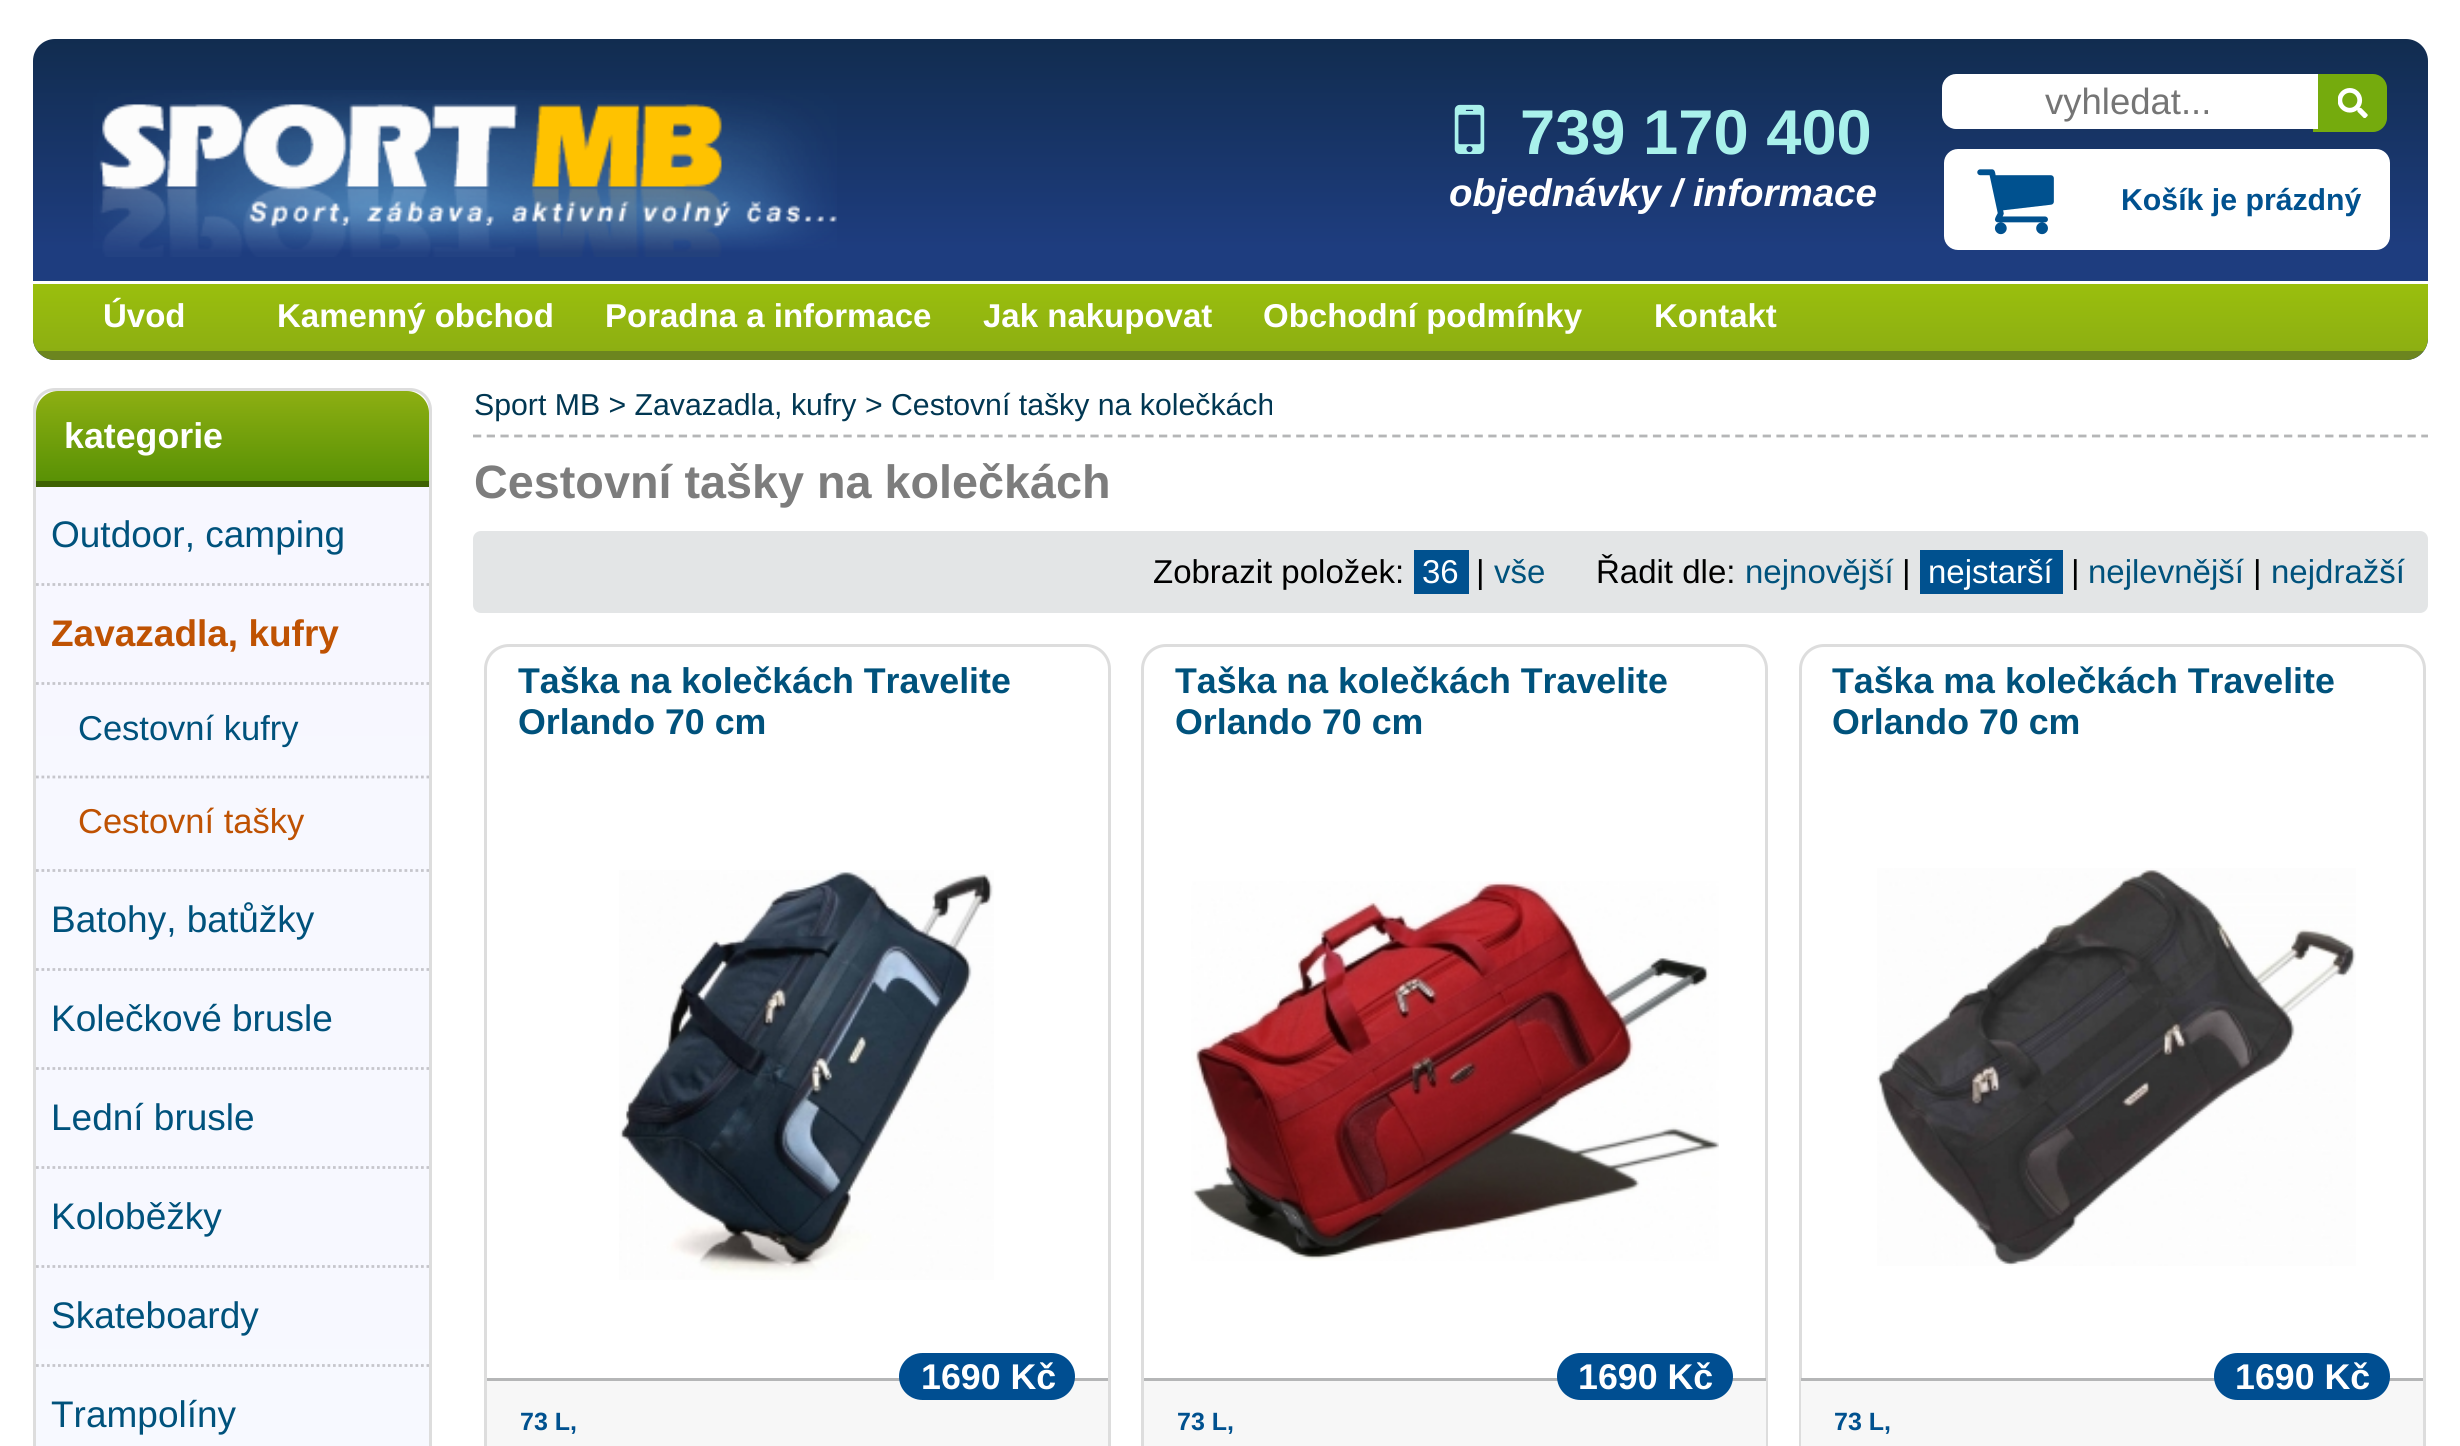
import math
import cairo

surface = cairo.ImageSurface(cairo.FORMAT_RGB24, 2460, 1446)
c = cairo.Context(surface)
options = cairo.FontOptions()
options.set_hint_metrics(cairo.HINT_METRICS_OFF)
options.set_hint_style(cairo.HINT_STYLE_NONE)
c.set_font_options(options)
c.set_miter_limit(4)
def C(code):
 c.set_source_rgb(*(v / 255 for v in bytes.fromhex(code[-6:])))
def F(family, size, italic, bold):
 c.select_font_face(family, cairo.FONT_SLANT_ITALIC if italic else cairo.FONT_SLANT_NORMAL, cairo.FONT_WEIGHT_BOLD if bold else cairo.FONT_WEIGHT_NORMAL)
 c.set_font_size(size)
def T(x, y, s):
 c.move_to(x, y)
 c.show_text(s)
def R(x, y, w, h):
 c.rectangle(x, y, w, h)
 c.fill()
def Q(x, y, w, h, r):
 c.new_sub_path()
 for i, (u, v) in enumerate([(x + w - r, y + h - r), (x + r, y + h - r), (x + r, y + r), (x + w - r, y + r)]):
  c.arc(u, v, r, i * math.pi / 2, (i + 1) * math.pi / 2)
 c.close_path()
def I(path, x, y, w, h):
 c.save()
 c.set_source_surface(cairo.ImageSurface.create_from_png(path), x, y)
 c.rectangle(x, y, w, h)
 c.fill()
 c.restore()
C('ffffff')
c.paint()
gradient = cairo.LinearGradient(1231,38,1231,360)
gradient.add_color_stop_rgba(0,0.067,0.173,0.31,1)
gradient.add_color_stop_rgba(.65,0.118,0.239,0.498,1)
c.set_source(gradient)
Q(33,39,2395,321,22)
c.fill()
I('1.png',93,90,744,167)
I('2.png',1454,104,31,50)
F('Liberation Sans',63.25,0,1)
C('a9f1eb')
T(1520,154,'739 170 400')
F('Liberation Sans',38.5,1,1)
C('ffffff')
T(1449,206,'objednávky / informace')
C('75ab0d')
c.new_path()
c.move_to(2313,74)
c.line_to(2373,74)
c.curve_to(2380.5,74,2387,80.5,2387,88)
c.line_to(2387,118)
c.curve_to(2387,125.5,2380.5,132,2373,132)
c.line_to(2313,132)
c.close_path()
c.fill()
C('ffffff')
c.new_path()
c.move_to(1956,74)
c.line_to(2318,74)
c.line_to(2318,129)
c.line_to(1956,129)
c.curve_to(1948.5,129,1942,122.5,1942,115)
c.line_to(1942,88)
c.curve_to(1942,80.5,1948.5,74,1956,74)
c.close_path()
c.fill()
F('Liberation Sans',36.5,0,0)
C('757575')
T(2045,114,'vyhledat...')
I('3.png',2338,88,30,30)
C('ffffff')
Q(1944,149,446,101,14)
c.fill()
I('4.png',1977,169,77,66)
F('Liberation Sans',30.25,0,1)
C('00518f')
T(2121,210,'Košík je prázdný')
gradient = cairo.LinearGradient(1231,283,1231,360)
gradient.add_color_stop_rgba(0,0.604,0.749,0.051,1)
gradient.add_color_stop_rgba(.88,0.553,0.686,0.071,1)
gradient.add_color_stop_rgba(.88,0.424,0.522,0.122,1)
c.set_source(gradient)
c.new_path()
c.move_to(33,283)
c.line_to(2428,283)
c.line_to(2428,338)
c.curve_to(2428,350,2418,360,2406,360)
c.line_to(55,360)
c.curve_to(43,360,33,350,33,338)
c.close_path()
c.fill()
C('ffffff')
R(33,281,2395,3)
F('Liberation Sans',33,0,1)
T(103,327,'Úvod')
T(277,327,'Kamenný obchod')
T(605,327,'Poradna a informace')
T(983,327,'Jak nakupovat')
T(1263,327,'Obchodní podmínky')
T(1654,327,'Kontakt')
Q(34.5,389.5,396,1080,20.5)
C('dddddd')
c.set_line_width(3)
c.stroke()
gradient = cairo.LinearGradient(232,391,232,481)
gradient.add_color_stop_rgba(0,0.553,0.686,0.071,1)
gradient.add_color_stop_rgba(1,0.349,0.569,0.02,1)
c.set_source(gradient)
c.new_path()
c.move_to(58,391)
c.line_to(407,391)
c.curve_to(419,391,429,401,429,413)
c.line_to(429,481)
c.line_to(36,481)
c.line_to(36,413)
c.curve_to(36,401,46,391,58,391)
c.close_path()
c.fill()
C('3e6102')
R(36,481,393,6)
F('Liberation Sans',35.75,0,1)
C('ffffff')
T(64,448,'kategorie')
gradient = cairo.LinearGradient(232,487,232,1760)
gradient.add_color_stop_rgba(0,0.969,0.969,1,1)
gradient.add_color_stop_rgba(.86,0.969,0.976,1,1)
gradient.add_color_stop_rgba(1,0.91,0.914,0.937,1)
c.set_source(gradient)
R(36,487,393,959)
F('Liberation Sans',37,0,0)
C('00527c')
T(51,547,'Outdoor, camping')
c.new_path()
c.move_to(36,584.5)
c.line_to(429,584.5)
C('c6c6cc')
c.set_line_width(2.8)
c.set_dash([2.75,2.75])
c.stroke()
F('Liberation Sans',37,0,1)
C('bf5202')
T(51,646,'Zavazadla, kufry')
c.new_path()
c.move_to(36,683.5)
c.line_to(429,683.5)
C('c6c6cc')
c.stroke()
F('Liberation Sans',34.5,0,0)
C('00527c')
T(78,740,'Cestovní kufry')
c.new_path()
c.move_to(36,777)
c.line_to(429,777)
C('c6c6cc')
c.stroke()
C('bf5202')
T(78,833,'Cestovní tašky')
c.new_path()
c.move_to(36,870.5)
c.line_to(429,870.5)
C('c6c6cc')
c.stroke()
F('Liberation Sans',37,0,0)
C('00527c')
T(51,932,'Batohy, batůžky')
c.new_path()
c.move_to(36,969.5)
c.line_to(429,969.5)
C('c6c6cc')
c.stroke()
C('00527c')
T(51,1031,'Kolečkové brusle')
c.new_path()
c.move_to(36,1068.5)
c.line_to(429,1068.5)
C('c6c6cc')
c.stroke()
C('00527c')
T(51,1130,'Lední brusle')
c.new_path()
c.move_to(36,1167.5)
c.line_to(429,1167.5)
C('c6c6cc')
c.stroke()
C('00527c')
T(51,1229,'Koloběžky')
c.new_path()
c.move_to(36,1266.5)
c.line_to(429,1266.5)
C('c6c6cc')
c.stroke()
C('00527c')
T(51,1328,'Skateboardy')
c.new_path()
c.move_to(36,1365.5)
c.line_to(429,1365.5)
C('c6c7cc')
c.stroke()
C('00527c')
T(51,1427,'Trampolíny')
c.new_path()
c.move_to(473,436)
c.line_to(2428,436)
C('b5b6b7')
c.set_dash([8.25,5.47])
c.stroke()
F('Liberation Sans',30.25,0,0)
C('013752')
T(474,415,'Sport MB > Zavazadla, kufry > Cestovní tašky na kolečkách')
F('Liberation Sans',46.75,0,1)
C('7d7d7d')
T(474,498,'Cestovní tašky na kolečkách')
C('e3e5e6')
Q(473,531,1955,82,8)
c.fill()
F('Liberation Sans',33,0,0)
C('000000')
T(1153,583,'Zobrazit položek:')
C('00518f')
R(1414,550,55,44)
C('ffffff')
T(1422,583,'36')
C('000000')
T(1476,583,'|')
C('00527c')
T(1494,583,'vše')
C('000000')
T(1596,583,'Řadit dle:')
C('00527c')
T(1745,583,'nejnovější')
C('000000')
T(1902,583,'|')
C('00518f')
R(1920,550,143,44)
C('ffffff')
T(1928,583,'nejstarší')
C('000000')
T(2071,583,'|')
C('00527c')
T(2088,583,'nejlevnější')
C('000000')
T(2253,583,'|')
C('00527c')
T(2271,583,'nejdražší')
Q(485.5,645.5,624,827,23.5)
C('dddddd')
c.set_line_width(3)
c.set_dash([])
c.stroke()
F('Liberation Sans',35.75,0,1)
C('00527c')
T(518,693,'Taška na kolečkách Travelite')
T(518,734,'Orlando 70 cm')
I('5.png',619,870,375,410)
gradient = cairo.LinearGradient(798,1381,798,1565)
gradient.add_color_stop_rgba(0,0.969,0.969,0.969,1)
gradient.add_color_stop_rgba(.69,0.969,0.969,0.969,1)
gradient.add_color_stop_rgba(1,0.894,0.894,0.894,1)
c.set_source(gradient)
R(487,1381,621,65)
C('b5b6b7')
R(487,1378,621,3)
C('004e91')
Q(899,1353,176,47,23.5)
c.fill()
C('ffffff')
T(921,1389,'1690 Kč')
F('Liberation Sans',25,0,1)
C('00518f')
T(520,1430,'73 L,')
Q(1142.5,645.5,624,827,23.5)
C('dddddd')
c.stroke()
F('Liberation Sans',35.75,0,1)
C('00527c')
T(1175,693,'Taška na kolečkách Travelite')
T(1175,734,'Orlando 70 cm')
I('6.png',1191,881,528,380)
gradient = cairo.LinearGradient(1455,1381,1455,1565)
gradient.add_color_stop_rgba(0,0.969,0.969,0.969,1)
gradient.add_color_stop_rgba(.69,0.969,0.969,0.969,1)
gradient.add_color_stop_rgba(1,0.894,0.894,0.894,1)
c.set_source(gradient)
R(1144,1381,622,65)
C('b5b6b7')
R(1144,1378,622,3)
C('004e91')
Q(1557,1353,176,47,23.5)
c.fill()
C('ffffff')
T(1578,1389,'1690 Kč')
F('Liberation Sans',25,0,1)
C('00518f')
T(1177,1430,'73 L,')
Q(1800.5,645.5,624,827,23.5)
C('dddddd')
c.stroke()
F('Liberation Sans',35.75,0,1)
C('00527c')
T(1832,693,'Taška ma kolečkách Travelite')
T(1832,734,'Orlando 70 cm')
I('7.png',1877,868,479,398)
gradient = cairo.LinearGradient(2112,1381,2112,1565)
gradient.add_color_stop_rgba(0,0.969,0.969,0.969,1)
gradient.add_color_stop_rgba(.69,0.969,0.969,0.969,1)
gradient.add_color_stop_rgba(1,0.894,0.894,0.894,1)
c.set_source(gradient)
R(1801,1381,622,65)
C('b5b6b7')
R(1801,1378,622,3)
C('004e91')
Q(2214,1353,176,47,23.5)
c.fill()
C('ffffff')
T(2235,1389,'1690 Kč')
F('Liberation Sans',25,0,1)
C('00518f')
T(1834,1430,'73 L,')
surface.write_to_png('o.png')
